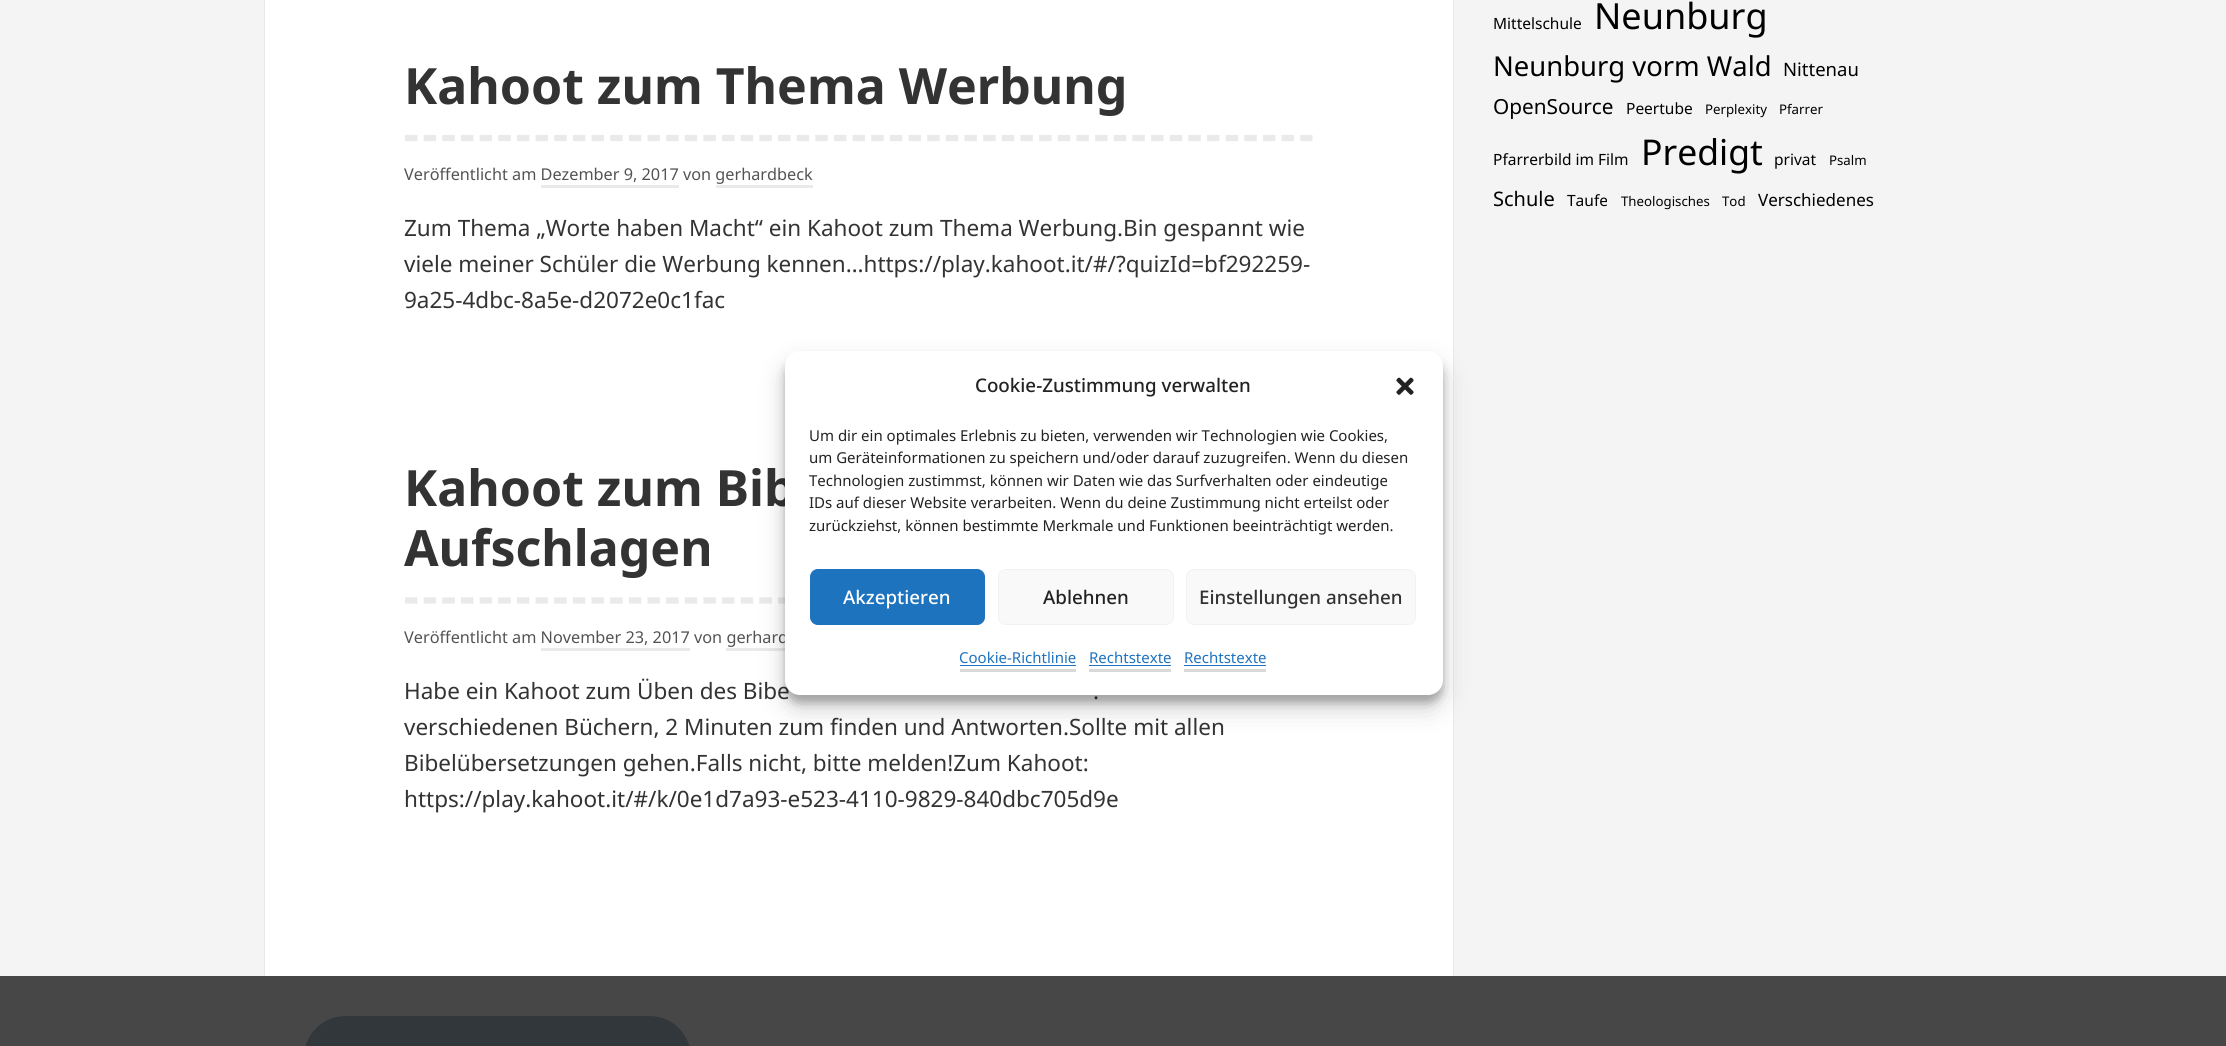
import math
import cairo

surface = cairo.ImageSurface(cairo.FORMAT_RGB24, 2226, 1046)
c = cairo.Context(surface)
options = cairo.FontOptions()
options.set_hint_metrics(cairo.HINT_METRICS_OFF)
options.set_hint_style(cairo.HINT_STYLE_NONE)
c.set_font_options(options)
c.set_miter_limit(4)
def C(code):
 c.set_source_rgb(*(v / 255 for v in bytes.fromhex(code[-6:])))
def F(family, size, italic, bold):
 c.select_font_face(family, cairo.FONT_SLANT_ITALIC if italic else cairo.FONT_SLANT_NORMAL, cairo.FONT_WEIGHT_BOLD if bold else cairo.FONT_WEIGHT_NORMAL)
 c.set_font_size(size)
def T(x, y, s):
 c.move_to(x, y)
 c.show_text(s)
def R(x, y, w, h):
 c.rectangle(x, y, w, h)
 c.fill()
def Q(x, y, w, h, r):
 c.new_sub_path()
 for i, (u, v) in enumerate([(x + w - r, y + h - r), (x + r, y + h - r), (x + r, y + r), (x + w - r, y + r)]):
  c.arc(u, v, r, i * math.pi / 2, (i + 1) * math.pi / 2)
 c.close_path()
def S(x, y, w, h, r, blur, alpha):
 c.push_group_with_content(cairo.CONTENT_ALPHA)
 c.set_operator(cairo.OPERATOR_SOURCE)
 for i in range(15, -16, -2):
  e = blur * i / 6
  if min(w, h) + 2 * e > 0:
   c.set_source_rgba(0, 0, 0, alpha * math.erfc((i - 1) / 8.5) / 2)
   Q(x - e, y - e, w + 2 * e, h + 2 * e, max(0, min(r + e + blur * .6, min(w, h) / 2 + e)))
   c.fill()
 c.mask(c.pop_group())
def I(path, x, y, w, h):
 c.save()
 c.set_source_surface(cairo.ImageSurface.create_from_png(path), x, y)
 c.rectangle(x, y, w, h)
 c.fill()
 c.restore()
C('f4f4f4')
c.paint()
C('ffffff')
R(265,0,1188,976)
C('eaeaea')
R(1453,0,1,976)
R(264,0,1,976)
c.new_path()
c.move_to(405,138)
c.line_to(1312.5,138)
c.set_line_width(6.2)
c.set_dash([12.5,6.15])
c.stroke()
F('Noto Sans',50,0,1)
C('333333')
T(404,104,'Kahoot zum Thema Werbung')
F('Noto Sans',16.25,0,0)
C('535353')
T(404,180,'Veröffentlicht am Dezember 9, 2017 von gerhardbeck')
C('eaeaea')
R(541,185,138,3)
R(716,185,97,3)
F('Noto Sans',22.5,0,0)
C('333333')
T(404,236,'Zum Thema „Worte haben Macht“ ein Kahoot zum Thema Werbung.Bin gespannt wie')
T(404,272,'viele meiner Schüler die Werbung kennen…https://play.kahoot.it/#/?quizId=bf292259-')
T(404,308,'9a25-4dbc-8a5e-d2072e0c1fac')
c.new_path()
c.move_to(405,600.5)
c.line_to(1312.5,600.5)
C('eaeaea')
c.stroke()
F('Noto Sans',50,0,1)
C('333333')
T(404,506,'Kahoot zum Bib')
T(404,566,'Aufschlagen')
F('Noto Sans',16.25,0,0)
C('535353')
T(404,643,'Veröffentlicht am November 23, 2017 von gerhard')
C('eaeaea')
R(541,648,149,3)
R(726,648,59,3)
F('Noto Sans',22.5,0,0)
C('333333')
T(404,699,'Habe ein Kahoot zum Üben des Bibe')
T(1093,699,'.')
T(404,735,'verschiedenen Büchern, 2 Minuten zum finden und Antworten.Sollte mit allen')
T(404,771,'Bibelübersetzungen gehen.Falls nicht, bitte melden!Zum Kahoot:')
T(404,807,'https://play.kahoot.it/#/k/0e1d7a93-e523-4110-9829-840dbc705d9e')
F('Noto Sans',15.5,0,0)
C('000000')
T(1493,29,'Mittelschule')
F('Noto Sans',36,0,0)
T(1594,29,'Neunburg')
F('Noto Sans',27.4,0,0)
T(1493,76,'Neunburg vorm Wald')
F('Noto Sans',18.5,0,0)
T(1783,76,'Nittenau')
F('Noto Sans',20.75,0,0)
T(1493,114,'OpenSource')
F('Noto Sans',15.5,0,0)
T(1626,114,'Peertube')
F('Noto Sans',13.25,0,0)
T(1705,114,'Perplexity')
T(1779,114,'Pfarrer')
F('Noto Sans',15.5,0,0)
T(1493,165,'Pfarrerbild im Film')
F('Noto Sans',35.5,0,0)
T(1641,165,'Predigt')
F('Noto Sans',15.5,0,0)
T(1774,165,'privat')
F('Noto Sans',13.25,0,0)
T(1829,165,'Psalm')
F('Noto Sans',20,0,0)
T(1493,206,'Schule')
F('Noto Sans',15.5,0,0)
T(1567,206,'Taufe')
F('Noto Sans',13.25,0,0)
T(1621,206,'Theologisches')
T(1722,206,'Tod')
F('Noto Sans',17,0,0)
T(1758,206,'Verschiedenes')
C('000000')
S(785,359,658,344,15,4,.23)
S(785,364,658,344,15,12.5,.19)
C('ffffff')
Q(785,351,658,344,15)
c.fill()
F('Noto Sans Medium',18.75,0,0)
C('222222')
T(975,392,'Cookie-Zustimmung verwalten')
I('1.png',1396,377,18,18)
F('Noto Sans',15,0,0)
T(809,441,'Um dir ein optimales Erlebnis zu bieten, verwenden wir Technologien wie Cookies,')
T(809,463,'um Geräteinformationen zu speichern und/oder darauf zuzugreifen. Wenn du diesen')
T(809,486,'Technologien zustimmst, können wir Daten wie das Surfverhalten oder eindeutige')
T(809,508,'IDs auf dieser Website verarbeiten. Wenn du deine Zustimmung nicht erteilst oder')
T(809,531,'zurückziehst, können bestimmte Merkmale und Funktionen beeinträchtigt werden.')
C('1e73be')
Q(810.5,569.5,174,55,7.5)
c.fill_preserve()
c.set_line_width(1)
c.set_dash([])
c.stroke()
F('Noto Sans Medium',18.75,0,0)
C('ffffff')
T(843,604,'Akzeptieren')
C('f9f9f9')
Q(998.5,569.5,175,55,7.5)
c.fill_preserve()
C('f2f2f2')
c.stroke()
C('222222')
T(1043,604,'Ablehnen')
C('f9f9f9')
Q(1186.5,569.5,229,55,7.5)
c.fill_preserve()
C('f2f2f2')
c.stroke()
C('333333')
T(1199,604,'Einstellungen ansehen')
F('Noto Sans',15,0,0)
C('1e73be')
T(959,663,'Cookie-Richtlinie')
C('dad9d9')
R(960,669,116,3)
C('1e73be')
R(960,665,116,1)
T(1089,663,'Rechtstexte')
C('dad9d9')
R(1089,669,82,3)
C('1e73be')
R(1089,665,82,1)
T(1184,663,'Rechtstexte')
C('dad9d9')
R(1184,669,82,3)
C('1e73be')
R(1184,665,82,1)
C('474747')
R(0,976,2226,70)
C('32373c')
Q(304,1016,387,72,41.5)
c.fill()
surface.write_to_png('o.png')
